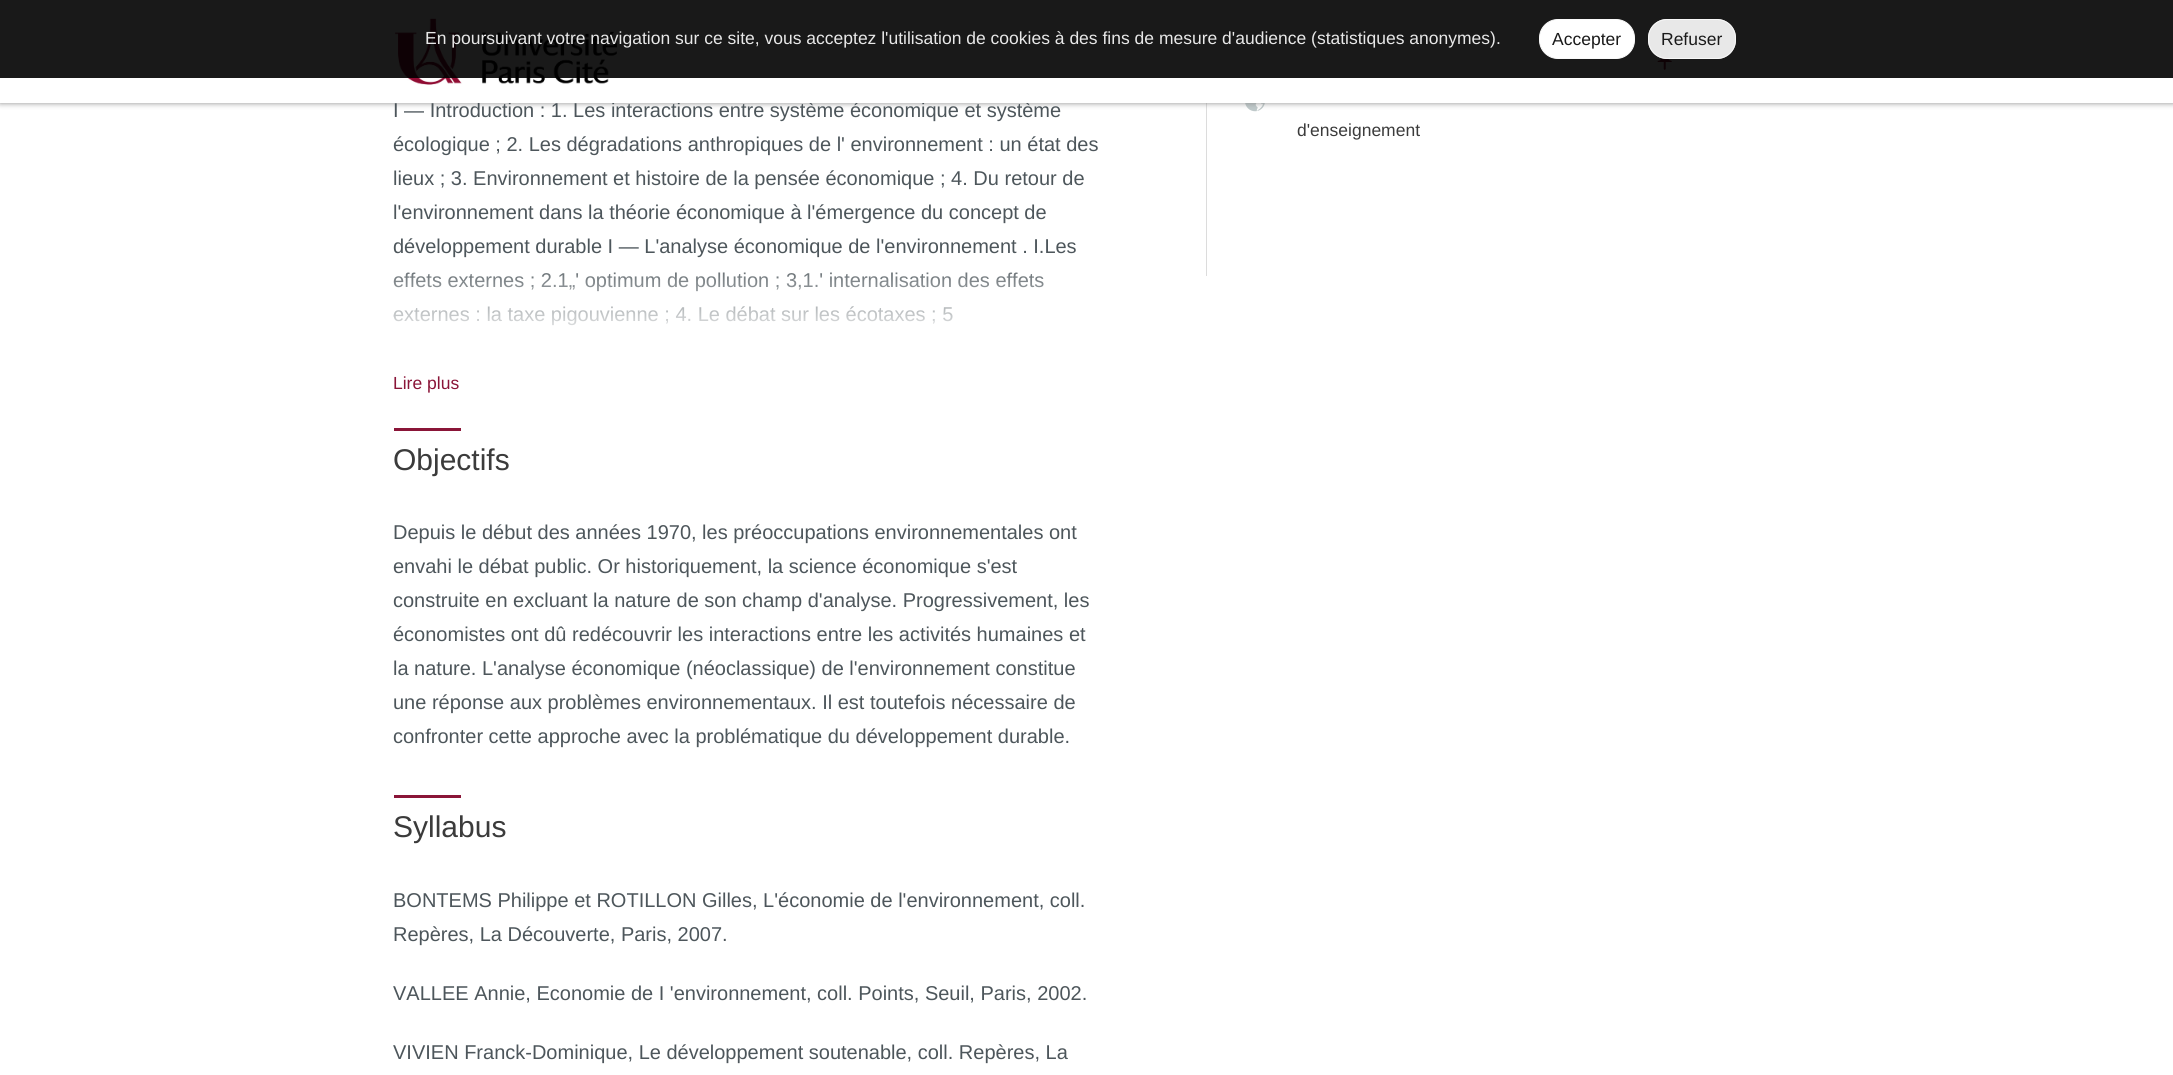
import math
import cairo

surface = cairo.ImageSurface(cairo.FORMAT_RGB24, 2173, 1075)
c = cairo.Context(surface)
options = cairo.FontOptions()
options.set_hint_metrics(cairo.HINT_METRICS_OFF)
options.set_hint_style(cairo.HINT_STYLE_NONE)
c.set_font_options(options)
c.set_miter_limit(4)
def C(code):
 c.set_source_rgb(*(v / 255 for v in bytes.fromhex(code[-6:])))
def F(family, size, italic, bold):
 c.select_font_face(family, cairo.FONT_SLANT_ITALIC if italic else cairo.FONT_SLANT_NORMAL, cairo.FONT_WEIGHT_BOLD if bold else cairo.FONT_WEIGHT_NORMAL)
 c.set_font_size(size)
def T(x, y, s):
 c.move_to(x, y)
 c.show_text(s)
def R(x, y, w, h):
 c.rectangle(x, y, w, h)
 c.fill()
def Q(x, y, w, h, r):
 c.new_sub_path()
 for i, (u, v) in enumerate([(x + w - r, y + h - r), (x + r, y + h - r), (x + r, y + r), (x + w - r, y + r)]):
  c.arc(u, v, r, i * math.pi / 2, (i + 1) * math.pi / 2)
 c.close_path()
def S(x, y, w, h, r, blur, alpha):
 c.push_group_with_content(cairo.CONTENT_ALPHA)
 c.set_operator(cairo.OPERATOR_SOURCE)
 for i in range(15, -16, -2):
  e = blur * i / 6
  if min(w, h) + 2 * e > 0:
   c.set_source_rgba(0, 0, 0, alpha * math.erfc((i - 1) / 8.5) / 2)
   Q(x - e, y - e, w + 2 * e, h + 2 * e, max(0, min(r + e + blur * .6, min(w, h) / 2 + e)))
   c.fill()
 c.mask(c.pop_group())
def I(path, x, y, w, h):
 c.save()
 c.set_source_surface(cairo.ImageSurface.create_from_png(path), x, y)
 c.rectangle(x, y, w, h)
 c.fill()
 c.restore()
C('ffffff')
c.paint()
C('dcdcdc')
R(1206,103,1,173)
I('3.png',1245,103,20,9)
C('8a8a8a')
S(0,0,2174,103,0,3,1)
F('Liberation Sans',20,0,0)
C('4d565b')
T(393,117,'I — Introduction : 1. Les interactions entre système économique et système')
C('ffffff')
R(0,0,2173,103)
I('1.png',395,18,222,67)
I('2.png',1657,50,15,20)
c.set_source_rgba(0,0,0,0.9)
R(0,0,2173,78)
F('Liberation Sans',17.5,0,0)
C('e8e8e8')
T(425,44,'En poursuivant votre navigation sur ce site, vous acceptez l\'utilisation de cookies à des fins de mesure d\'audience (statistiques anonymes).')
C('ffffff')
Q(1539.5,19.5,95,39,18.5)
c.fill_preserve()
C('fafafa')
c.set_line_width(1)
c.stroke()
C('1a1a1a')
T(1552,45,'Accepter')
c.set_source_rgba(1,1,1,0.9)
Q(1648,19,88,40,19)
c.fill()
Q(1648.5,19.5,87,39,18.5)
c.set_source_rgba(0.976,0.976,0.976,0.9)
c.stroke()
C('1a1a1a')
T(1661,45,'Refuser')
F('Liberation Sans',20,0,0)
C('4d565b')
T(393,151,'écologique ; 2. Les dégradations anthropiques de l\' environnement : un état des')
T(393,185,'lieux ; 3. Environnement et histoire de la pensée économique ; 4. Du retour de')
T(393,219,'l\'environnement dans la théorie économique à l\'émergence du concept de')
T(393,253,'développement durable I — L\'analyse économique de l\'environnement . I.Les')
T(393,287,'effets externes ; 2.1„\' optimum de pollution ; 3,1.\' internalisation des effets')
T(393,321,'externes : la taxe pigouvienne ; 4. Le débat sur les écotaxes ; 5')
gradient = cairo.LinearGradient(747,256,747,344)
gradient.add_color_stop_rgba(0,1,1,1,0)
gradient.add_color_stop_rgba(1,1,1,1,1)
c.set_source(gradient)
R(394,272,650,54)
F('Liberation Sans',17.5,0,0)
C('8a1538')
T(393,389,'Lire plus')
R(394,428,67,3)
F('Liberation Sans',30,0,0)
C('3b3b3b')
T(393,470,'Objectifs')
F('Liberation Sans',20,0,0)
C('4d565b')
T(393,539,'Depuis le début des années 1970, les préoccupations environnementales ont')
T(393,573,'envahi le débat public. Or historiquement, la science économique s\'est')
T(393,607,'construite en excluant la nature de son champ d\'analyse. Progressivement, les')
T(393,641,'économistes ont dû redécouvrir les interactions entre les activités humaines et')
T(393,675,'la nature. L\'analyse économique (néoclassique) de l\'environnement constitue')
T(393,709,'une réponse aux problèmes environnementaux. Il est toutefois nécessaire de')
T(393,743,'confronter cette approche avec la problématique du développement durable.')
C('8a1538')
R(394,795,67,3)
F('Liberation Sans',30,0,0)
C('3b3b3b')
T(393,837,'Syllabus')
F('Liberation Sans',20,0,0)
C('4d565b')
T(393,907,'BONTEMS Philippe et ROTILLON Gilles, L\'économie de l\'environnement, coll.')
T(393,941,'Repères, La Découverte, Paris, 2007.')
T(393,1000,'VALLEE Annie, Economie de I \'environnement, coll. Points, Seuil, Paris, 2002.')
T(393,1059,'VIVIEN Franck-Dominique, Le développement soutenable, coll. Repères, La')
F('Liberation Sans',17.5,0,0)
C('3b3b3b')
T(1297,136,'d\'enseignement')
surface.write_to_png('o.png')
